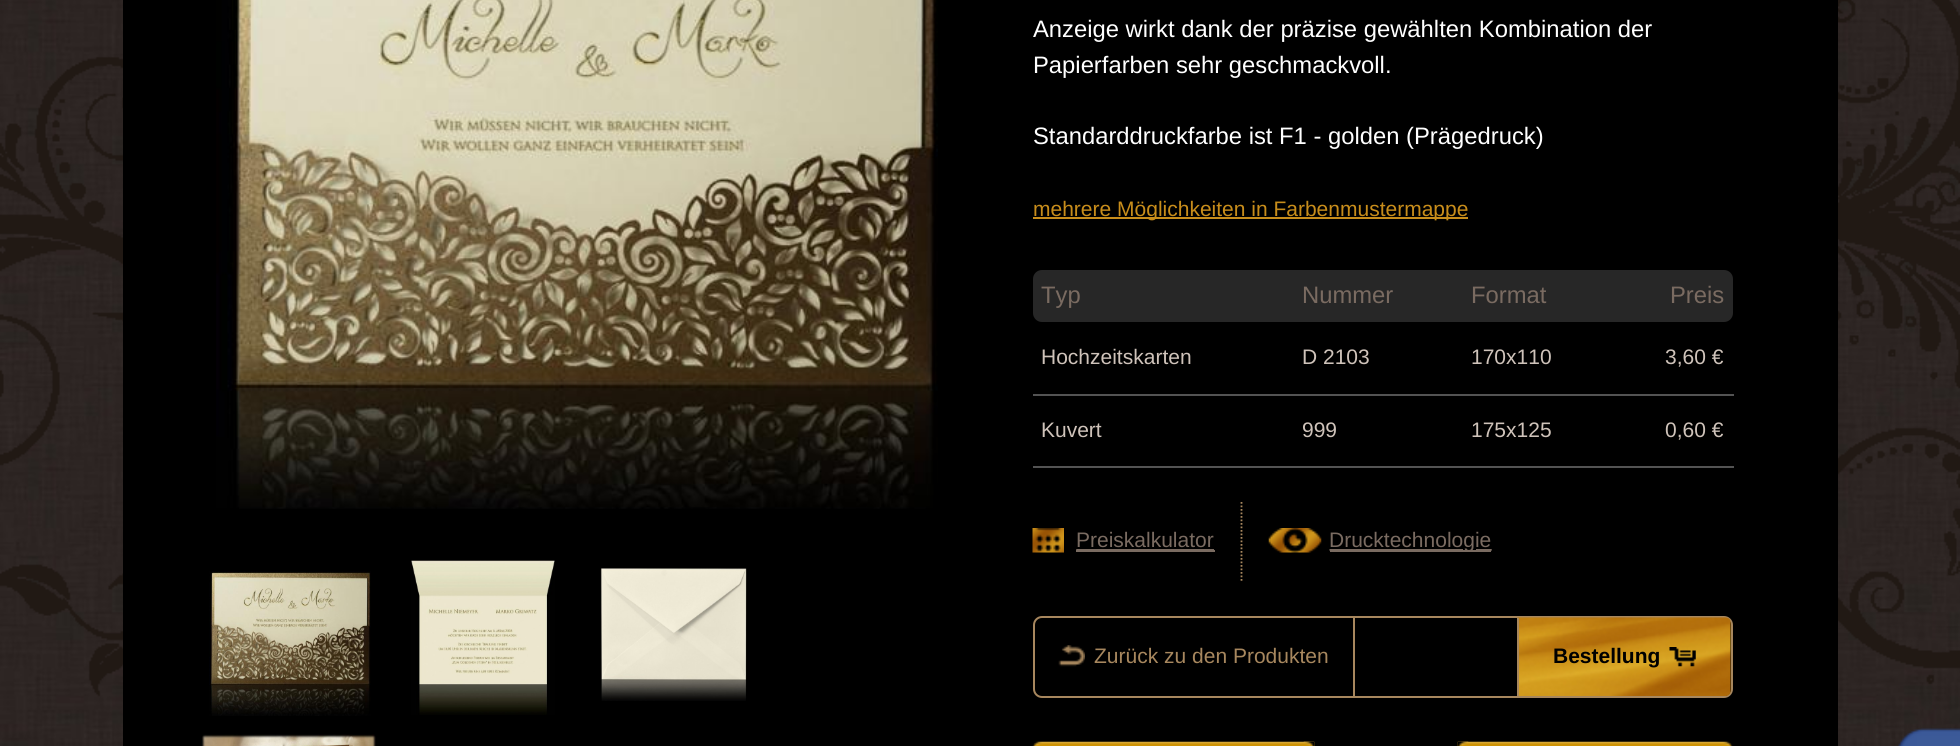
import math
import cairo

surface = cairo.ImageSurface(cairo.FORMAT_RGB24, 1960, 746)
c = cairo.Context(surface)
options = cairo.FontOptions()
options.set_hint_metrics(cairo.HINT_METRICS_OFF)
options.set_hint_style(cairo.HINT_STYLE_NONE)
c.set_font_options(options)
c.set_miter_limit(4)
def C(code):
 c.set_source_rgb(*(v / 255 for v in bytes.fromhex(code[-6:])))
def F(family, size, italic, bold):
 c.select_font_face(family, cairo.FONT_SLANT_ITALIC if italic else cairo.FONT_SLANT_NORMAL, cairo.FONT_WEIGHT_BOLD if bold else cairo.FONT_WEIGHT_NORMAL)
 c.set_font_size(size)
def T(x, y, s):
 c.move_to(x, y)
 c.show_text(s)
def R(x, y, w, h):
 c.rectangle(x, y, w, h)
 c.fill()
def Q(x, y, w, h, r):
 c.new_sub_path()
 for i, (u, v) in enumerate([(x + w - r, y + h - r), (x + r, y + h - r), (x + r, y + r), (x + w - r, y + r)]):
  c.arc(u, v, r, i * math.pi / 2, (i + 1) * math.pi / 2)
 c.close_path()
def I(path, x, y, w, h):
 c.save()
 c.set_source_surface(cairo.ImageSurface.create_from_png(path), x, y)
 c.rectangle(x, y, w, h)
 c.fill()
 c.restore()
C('ffffff')
c.paint()
I('1.png',0,0,1960,746)
I('2.png',0,0,1960,697)
C('000000')
R(123,0,1715,746)
I('3.png',216,0,722,509)
I('4.png',209,571,162,145)
I('5.png',411,560,144,155)
I('6.png',600,568,147,133)
I('7.png',201,734,175,12)
F('Liberation Sans',23.8,0,0)
C('ffffff')
T(1033,37,'Anzeige wirkt dank der präzise gewählten Kombination der')
T(1033,73,'Papierfarben sehr geschmackvoll.')
T(1033,144,'Standarddruckfarbe ist F1 - golden (Prägedruck)')
C('c88d1b')
R(1033,217,435,2)
F('Liberation Sans',21,0,0)
T(1033,216,'mehrere Möglichkeiten in Farbenmustermappe')
C('272727')
c.new_path()
c.move_to(1042,270)
c.line_to(1293,270)
c.line_to(1293,322)
c.line_to(1042,322)
c.curve_to(1037,322,1033,318,1033,313)
c.line_to(1033,279)
c.curve_to(1033,274,1037,270,1042,270)
c.close_path()
c.fill()
F('Liberation Sans',23.8,0,0)
C('7a6b61')
T(1041,303,'Typ')
C('272727')
R(1293,270,322,52)
C('7a6b61')
T(1302,303,'Nummer')
T(1471,303,'Format')
C('272727')
c.new_path()
c.move_to(1615,270)
c.line_to(1724,270)
c.curve_to(1729,270,1733,274,1733,279)
c.line_to(1733,313)
c.curve_to(1733,318,1729,322,1724,322)
c.line_to(1615,322)
c.close_path()
c.fill()
C('7a6b61')
T(1670,303,'Preis')
F('Liberation Sans',21,0,0)
C('cfc3ba')
T(1041,364,'Hochzeitskarten')
T(1302,364,'D 2103')
T(1471,364,'170x110')
C('535353')
R(1033,394,701,2)
C('cfc3ba')
T(1665,364,'3,60 €')
T(1041,437,'Kuvert')
T(1302,437,'999')
T(1471,437,'175x125')
C('535353')
R(1033,466,701,2)
C('cfc3ba')
T(1665,437,'0,60 €')
c.new_path()
c.move_to(1241.5,502)
c.line_to(1241.5,581)
C('a7875e')
c.set_line_width(1.8)
c.set_dash([1.75,1.75])
c.stroke()
I('8.png',1032,528,182,25)
C('7a6b61')
T(1076,547,'Preiskalkulator')
R(1076,550,139,2)
I('9.png',1268,528,224,25)
R(1330,550,161,2)
T(1329,547,'Drucktechnologie')
Q(1034,617,698,80,8)
C('a7875e')
c.set_line_width(2)
c.set_dash([])
c.stroke()
R(1353,618,2,79)
I('10.png',1058,645,27,22)
T(1094,663,'Zurück zu den Produkten')
I('11.png',1517,617,214,79)
R(1517,618,2,79)
I('12.png',1669,647,27,20)
F('Liberation Sans',21,0,1)
C('000000')
T(1553,663,'Bestellung')
I('13.png',1032,741,283,5)
I('14.png',1303,741,12,5)
I('15.png',1457,741,276,5)
I('16.png',1457,741,12,5)
I('17.png',1898,728,62,18)
surface.write_to_png('o.png')
